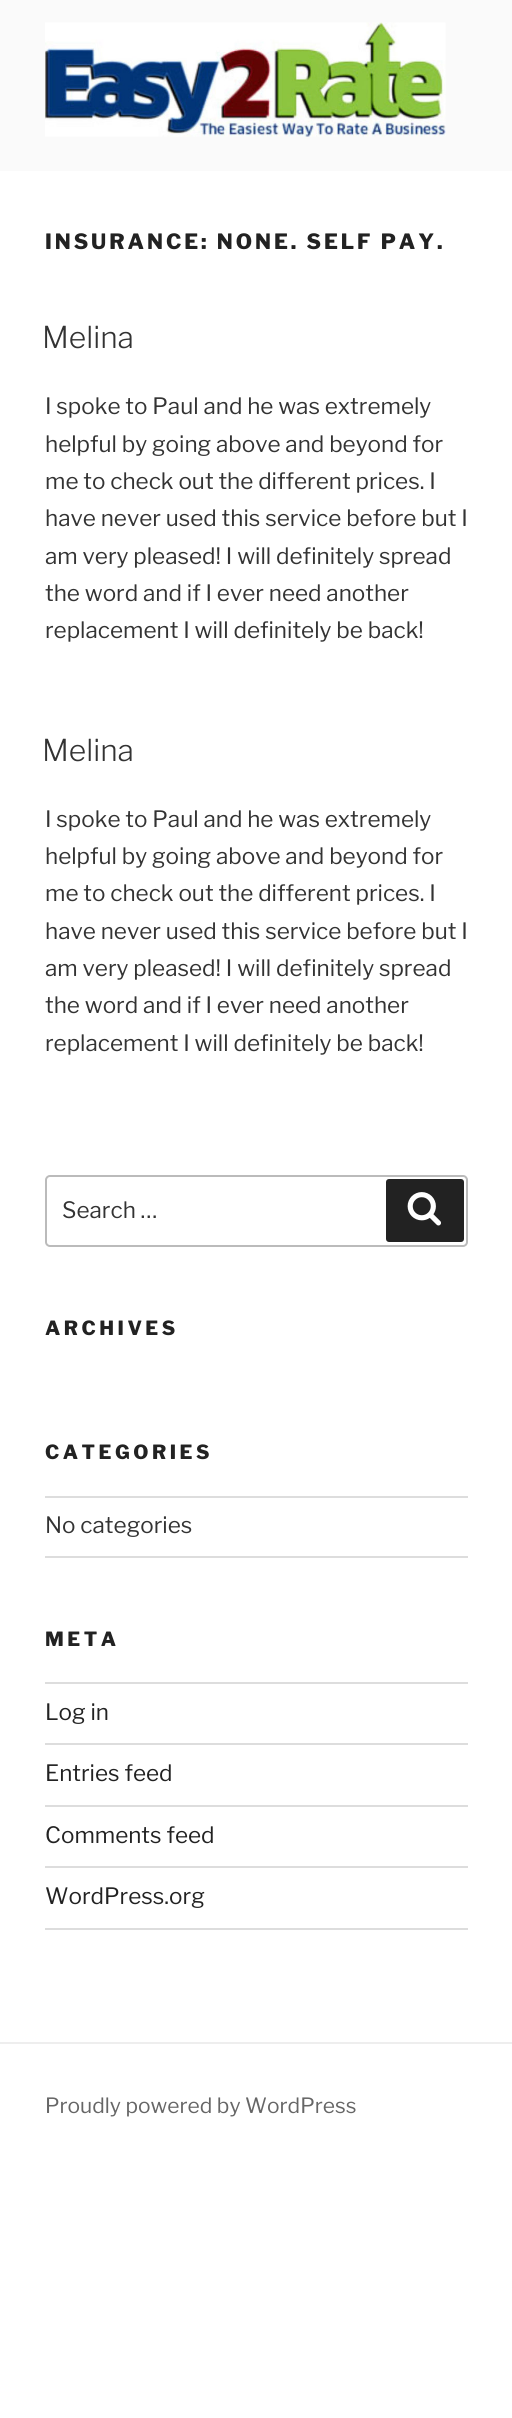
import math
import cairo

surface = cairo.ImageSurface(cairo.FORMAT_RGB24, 512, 2418)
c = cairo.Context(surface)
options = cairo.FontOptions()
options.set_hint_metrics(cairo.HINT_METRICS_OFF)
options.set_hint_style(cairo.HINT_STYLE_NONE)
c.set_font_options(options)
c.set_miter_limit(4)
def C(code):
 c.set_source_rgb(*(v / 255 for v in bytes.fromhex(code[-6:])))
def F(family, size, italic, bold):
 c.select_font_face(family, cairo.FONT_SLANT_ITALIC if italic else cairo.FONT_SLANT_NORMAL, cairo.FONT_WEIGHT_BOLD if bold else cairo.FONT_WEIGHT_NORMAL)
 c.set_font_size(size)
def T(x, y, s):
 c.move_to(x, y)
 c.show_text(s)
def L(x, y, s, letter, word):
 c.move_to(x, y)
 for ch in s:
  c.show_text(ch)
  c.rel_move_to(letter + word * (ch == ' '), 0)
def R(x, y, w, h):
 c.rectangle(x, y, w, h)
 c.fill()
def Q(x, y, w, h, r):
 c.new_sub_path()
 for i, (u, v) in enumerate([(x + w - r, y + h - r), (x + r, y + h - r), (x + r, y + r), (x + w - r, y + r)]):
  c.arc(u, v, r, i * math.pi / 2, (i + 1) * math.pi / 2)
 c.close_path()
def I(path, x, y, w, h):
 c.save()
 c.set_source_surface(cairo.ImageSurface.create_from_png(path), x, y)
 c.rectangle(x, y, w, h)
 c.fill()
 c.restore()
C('ffffff')
c.paint()
C('fafafa')
R(0,0,512,171)
I('1.png',45,22,401,115)
F('Libre Franklin Thin',21,0,0)
C('222222')
L(45,249,'INSURANCE: NONE. SELF PAY.',2.95,0)
F('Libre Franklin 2 Thin',30,0,0)
C('333333')
T(42,348,'Melina')
F('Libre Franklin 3 Thin',22.5,0,0)
T(45,414,'I spoke to Paul and he was extremely')
T(45,452,'helpful by going above and beyond for')
T(45,489,'me to check out the different prices. I')
T(45,526,'have never used this service before but I')
T(45,564,'am very pleased! I will definitely spread')
T(45,601,'the word and if I ever need another')
T(45,638,'replacement I will definitely be back!')
F('Libre Franklin 2 Thin',30,0,0)
T(42,761,'Melina')
F('Libre Franklin 3 Thin',22.5,0,0)
T(45,827,'I spoke to Paul and he was extremely')
T(45,864,'helpful by going above and beyond for')
T(45,901,'me to check out the different prices. I')
T(45,939,'have never used this service before but I')
T(45,976,'am very pleased! I will definitely spread')
T(45,1013,'the word and if I ever need another')
T(45,1051,'replacement I will definitely be back!')
Q(46,1176,421,70,4)
C('bbbbbb')
c.stroke()
C('333333')
T(62,1218,'Search …')
C('222222')
Q(386,1179,78,63,3)
c.fill()
I('2.png',407,1192,34,34)
F('Libre Franklin Thin',19.5,0,0)
L(45,1335,'ARCHIVES',3.5,0)
L(45,1459,'CATEGORIES',3.5,0)
C('dddddd')
R(45,1496,423,2)
R(45,1556,423,2)
F('Libre Franklin 3 Thin',22.5,0,0)
C('333333')
T(45,1533,'No categories')
F('Libre Franklin Thin',19.5,0,0)
C('222222')
L(45,1646,'META',3.5,0)
C('dddddd')
R(45,1682,423,2)
R(45,1743,423,2)
F('Libre Franklin 3 Thin',22.5,0,0)
C('222222')
T(45,1720,'Log in')
C('dddddd')
R(45,1805,423,2)
C('222222')
T(45,1781,'Entries feed')
C('dddddd')
R(45,1866,423,2)
C('222222')
T(45,1843,'Comments feed')
C('dddddd')
R(45,1928,423,2)
C('222222')
T(45,1904,'WordPress.org')
C('eeeeee')
R(0,2042,512,2)
F('Libre Franklin 3 Thin',21,0,0)
C('666666')
T(45,2113,'Proudly powered by WordPress')
surface.write_to_png('o.png')
